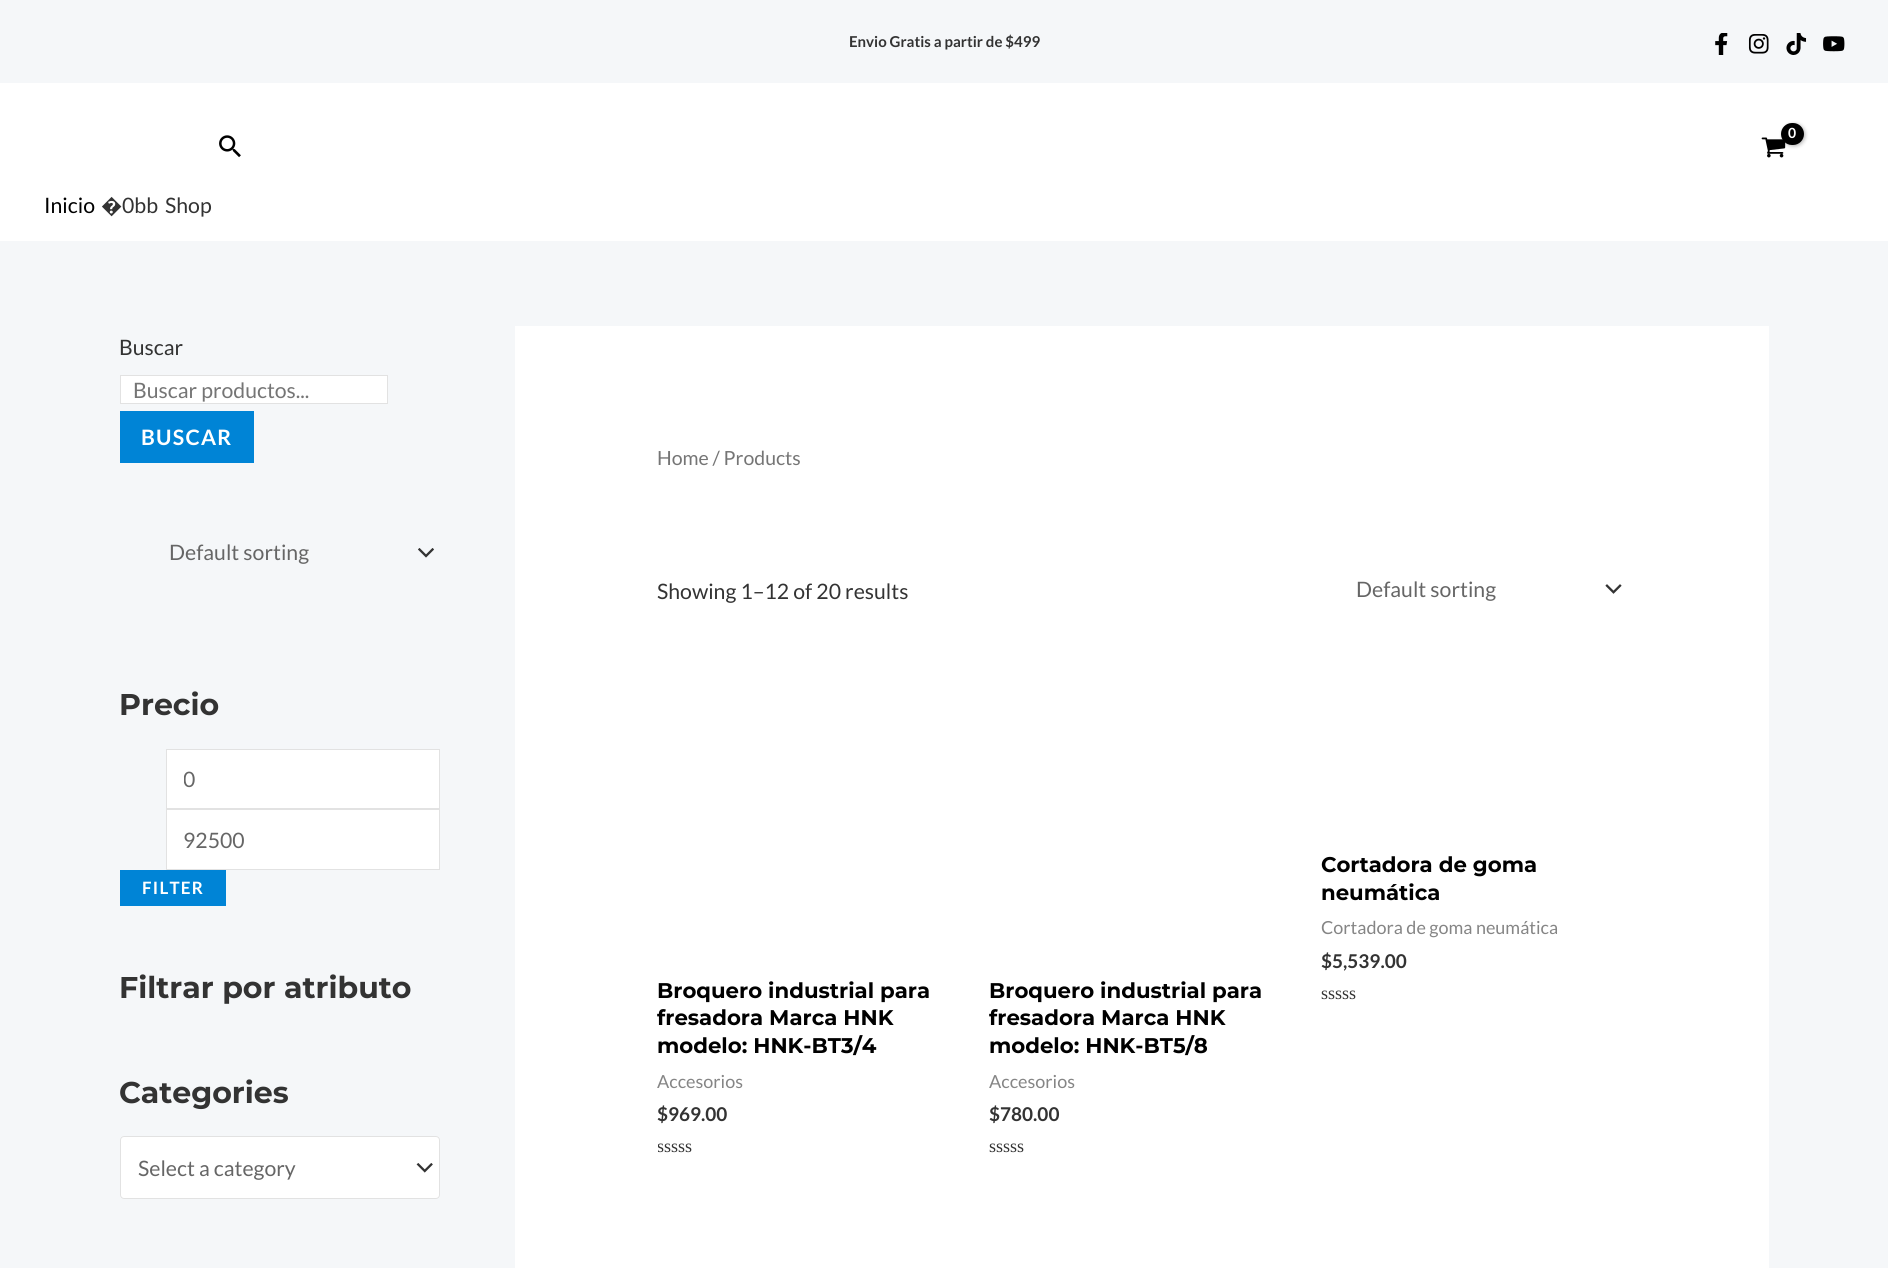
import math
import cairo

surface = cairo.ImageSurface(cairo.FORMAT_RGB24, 1888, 1268)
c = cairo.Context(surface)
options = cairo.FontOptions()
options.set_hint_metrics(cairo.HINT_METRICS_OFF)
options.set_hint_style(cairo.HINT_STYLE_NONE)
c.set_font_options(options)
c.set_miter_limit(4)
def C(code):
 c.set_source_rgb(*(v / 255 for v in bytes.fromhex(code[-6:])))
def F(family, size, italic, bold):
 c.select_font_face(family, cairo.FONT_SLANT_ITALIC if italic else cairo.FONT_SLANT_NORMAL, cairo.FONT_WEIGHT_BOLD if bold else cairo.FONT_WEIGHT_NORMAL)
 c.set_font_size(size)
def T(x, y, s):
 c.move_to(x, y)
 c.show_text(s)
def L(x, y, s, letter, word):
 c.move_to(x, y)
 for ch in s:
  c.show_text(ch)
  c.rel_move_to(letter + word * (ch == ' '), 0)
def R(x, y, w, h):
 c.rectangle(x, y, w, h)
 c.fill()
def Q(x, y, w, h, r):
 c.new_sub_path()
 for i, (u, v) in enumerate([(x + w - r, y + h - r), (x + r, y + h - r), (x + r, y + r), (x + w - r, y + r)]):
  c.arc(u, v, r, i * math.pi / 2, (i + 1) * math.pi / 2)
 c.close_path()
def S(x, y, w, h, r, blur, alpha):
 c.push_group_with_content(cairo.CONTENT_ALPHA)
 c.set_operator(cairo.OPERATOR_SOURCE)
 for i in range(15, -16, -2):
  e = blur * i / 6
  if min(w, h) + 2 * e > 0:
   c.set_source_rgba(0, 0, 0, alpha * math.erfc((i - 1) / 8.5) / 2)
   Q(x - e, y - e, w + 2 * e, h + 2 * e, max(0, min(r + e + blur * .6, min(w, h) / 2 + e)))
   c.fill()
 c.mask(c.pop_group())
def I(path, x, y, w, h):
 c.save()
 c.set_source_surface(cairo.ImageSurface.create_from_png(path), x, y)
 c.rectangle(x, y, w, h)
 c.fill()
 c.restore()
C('f5f7f9')
c.paint()
F('Lato',15,0,1)
C('333333')
T(849,47,'Envio Gratis a partir de $499')
I('1.png',1715,33,13,22)
I('2.png',1748,34,21,20)
I('3.png',1786,33,21,22)
I('4.png',1823,36,22,16)
C('ffffff')
R(0,83,1888,158)
I('5.png',1761,137,25,21)
C('000000')
S(1783,124,22,22,11,2,.3)
C('000000')
Q(1781,123,23,22,11)
c.fill()
F('Lato',14,0,1)
C('ffffff')
L(1788,138,'0',-1,0)
I('6.png',219,135,22,23)
F('Lato',21.25,0,0)
C('000000')
T(44,213,'Inicio')
F('Noto Sans',21.25,0,0)
C('333333')
T(101,213,'�')
F('Lato',21.25,0,0)
T(122,213,'0bb')
T(165,213,'Shop')
T(119,355,'Buscar')
C('ffffff')
c.rectangle(120.5,375.5,267,28)
c.fill_preserve()
C('e2e2e2')
c.set_line_width(1)
c.stroke()
C('757575')
T(133,398,'Buscar productos...')
C('0084d6')
R(120,411,134,52)
F('Lato',21.25,0,1)
C('ffffff')
L(141,445,'BUSCAR',1.25,0)
I('7.png',418,548,16,10)
F('Lato',21.25,0,0)
C('666666')
T(169,560,'Default sorting')
F('Montserrat Thin',30,0,0)
C('333333')
T(119,715,'Precio')
C('ffffff')
c.rectangle(166.5,749.5,273,59)
c.fill_preserve()
C('e2e2e2')
c.stroke()
c.save()
c.rectangle(184,766,240,27)
c.clip()
F('Lato',21.25,0,0)
C('666666')
T(183,787,'0')
c.restore()
C('ffffff')
c.rectangle(166.5,809.5,273,60)
c.fill_preserve()
C('e2e2e2')
c.stroke()
F('Lato',21.25,0,0)
C('666666')
T(183,848,'92500')
C('0084d6')
R(120,870,106,36)
F('Lato',17,0,1)
C('ffffff')
L(142,894,'FILTER',1.25,0)
F('Montserrat Thin',30,0,0)
C('333333')
T(119,998,'Filtrar por atributo')
T(119,1103,'Categories')
C('ffffff')
Q(120,1136,320,63,4)
c.fill()
I('8.png',416,1163,17,10)
Q(120.5,1136.5,319,62,3.5)
C('e2e2e2')
c.stroke()
F('Lato',21.25,0,0)
C('666666')
T(138,1176,'Select a category')
C('ffffff')
R(515,326,1254,942)
F('Lato',19.5,0,0)
C('757575')
T(657,465,'Home / Products')
F('Lato',21.25,0,0)
C('333333')
T(657,599,'Showing 1–12 of 20 results')
I('9.png',1605,584,17,10)
C('666666')
T(1356,597,'Default sorting')
F('Montserrat Thin',21.25,0,0)
C('000000')
T(1321,872,'Cortadora de goma')
T(1321,900,'neumática')
F('Lato',18,0,0)
C('858585')
T(1321,934,'Cortadora de goma neumática')
F('Lato',19,0,1)
C('333333')
T(1321,968,'$5,539.00')
F('Liberation Serif',18,0,0)
T(1321,999,'sssss')
F('Montserrat Thin',21.25,0,0)
C('000000')
T(657,998,'Broquero industrial para')
T(657,1025,'fresadora Marca HNK')
T(657,1053,'modelo: HNK-BT3/4')
F('Lato',18,0,0)
C('858585')
T(657,1088,'Accesorios')
F('Lato',19,0,1)
C('333333')
T(657,1121,'$969.00')
c.save()
c.rectangle(658,1138,97,17)
c.clip()
F('Liberation Serif',18,0,0)
T(657,1152,'sssss')
c.restore()
F('Montserrat Thin',21.25,0,0)
C('000000')
T(989,998,'Broquero industrial para')
T(989,1025,'fresadora Marca HNK')
T(989,1053,'modelo: HNK-BT5/8')
F('Lato',18,0,0)
C('858585')
T(989,1088,'Accesorios')
F('Lato',19,0,1)
C('333333')
T(989,1121,'$780.00')
F('Liberation Serif',18,0,0)
T(989,1152,'sssss')
surface.write_to_png('o.png')
